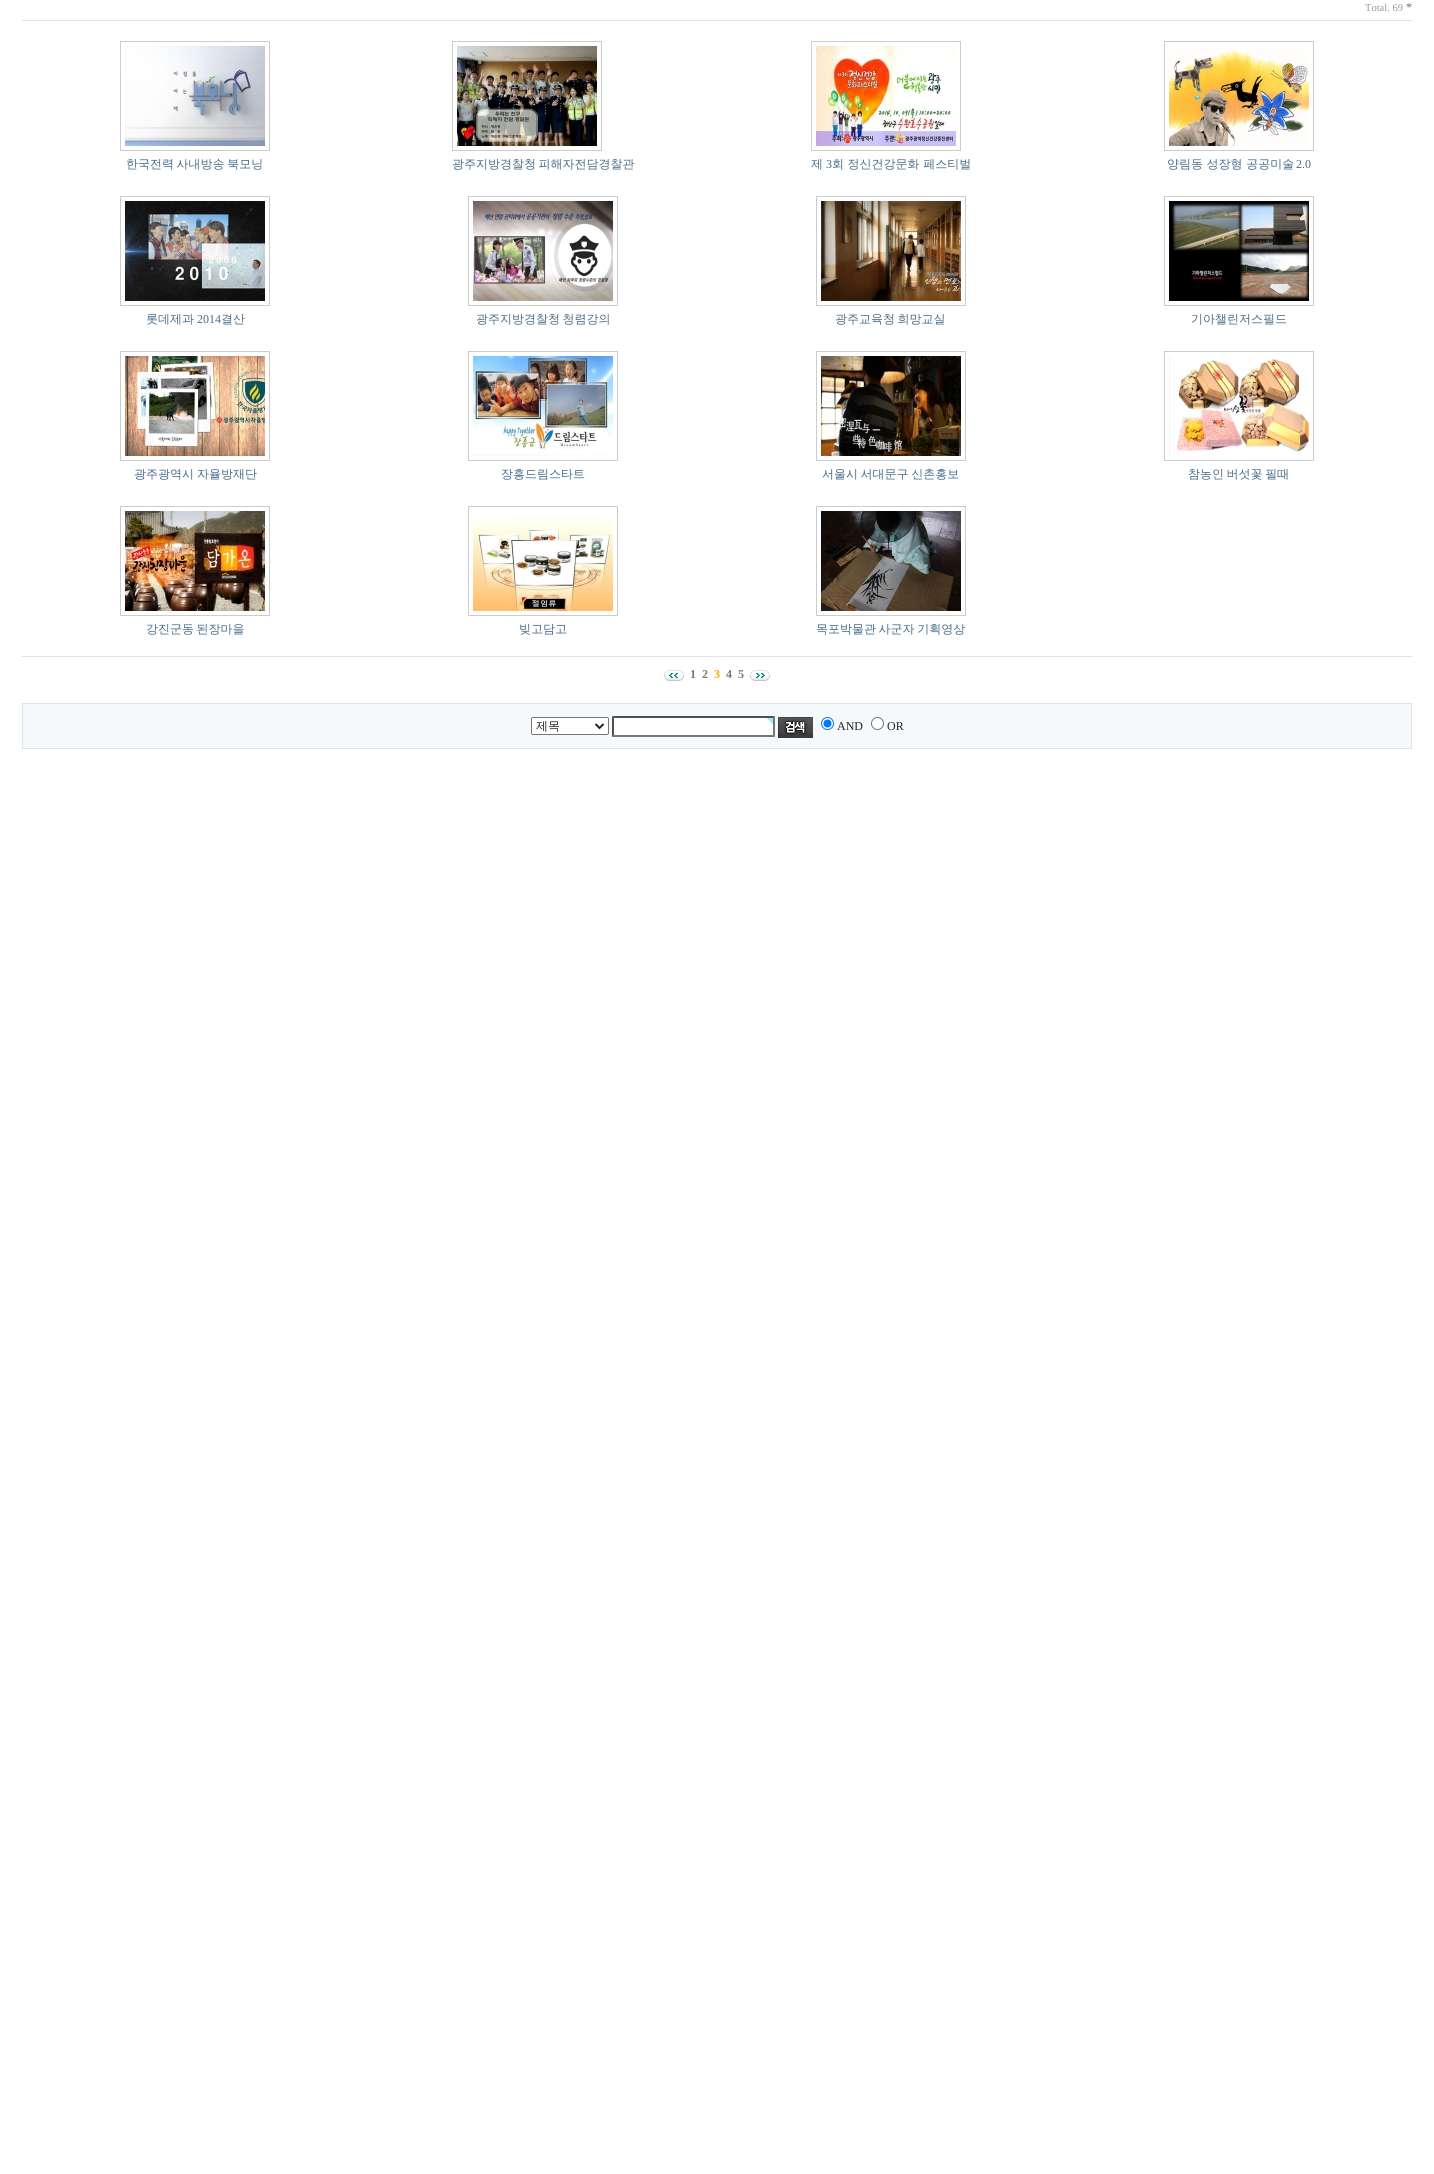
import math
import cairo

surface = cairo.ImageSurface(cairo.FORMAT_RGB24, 1434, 2174)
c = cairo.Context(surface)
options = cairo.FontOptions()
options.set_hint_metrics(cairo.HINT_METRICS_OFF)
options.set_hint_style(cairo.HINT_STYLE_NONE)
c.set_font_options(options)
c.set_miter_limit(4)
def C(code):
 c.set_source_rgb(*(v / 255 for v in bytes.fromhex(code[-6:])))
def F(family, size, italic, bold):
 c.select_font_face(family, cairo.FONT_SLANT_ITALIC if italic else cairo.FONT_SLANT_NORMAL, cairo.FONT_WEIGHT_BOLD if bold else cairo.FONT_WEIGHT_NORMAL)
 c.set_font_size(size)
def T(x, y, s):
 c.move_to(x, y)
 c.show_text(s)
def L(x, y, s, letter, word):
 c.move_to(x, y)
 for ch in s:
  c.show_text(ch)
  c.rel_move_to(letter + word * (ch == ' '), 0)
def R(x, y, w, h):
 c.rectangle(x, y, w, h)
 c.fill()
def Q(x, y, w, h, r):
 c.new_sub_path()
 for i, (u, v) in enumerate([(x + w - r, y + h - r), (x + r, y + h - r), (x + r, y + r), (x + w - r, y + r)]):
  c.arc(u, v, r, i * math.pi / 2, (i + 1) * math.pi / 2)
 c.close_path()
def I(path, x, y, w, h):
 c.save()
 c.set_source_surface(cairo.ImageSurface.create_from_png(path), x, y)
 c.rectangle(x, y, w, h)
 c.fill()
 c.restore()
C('ffffff')
c.paint()
F('Liberation Serif',10.5,0,0)
C('999999')
T(1365,11,'Total. 69')
F('Liberation Serif',12,0,0)
C('466c8a')
T(1406,11,'*')
C('dee3e7')
R(22,20,1390,1)
c.rectangle(120.5,41.5,149,109)
C('cccccc')
c.set_line_width(1)
c.stroke()
I('1.png',125,46,140,100)
F('WenQuanYi Zen Hei Medium',12,0,0)
C('466c8a')
L(126,168,'한국전력 사내방송 북모닝',0,-1)
c.rectangle(452.5,41.5,149,109)
C('cccccc')
c.stroke()
I('2.png',457,46,140,100)
C('466c8a')
L(452,168,'광주지방경찰청 피해자전담경찰관',0,-1)
c.rectangle(811.5,41.5,149,109)
C('cccccc')
c.stroke()
I('3.png',816,46,140,100)
C('466c8a')
T(811,168,'제')
F('Liberation Serif',12,0,0)
T(826,168,'3')
F('WenQuanYi Zen Hei Medium',12,0,0)
T(832,168,'회 정신건강문화 페스티벌')
c.rectangle(1164.5,41.5,149,109)
C('cccccc')
c.stroke()
I('4.png',1169,46,140,100)
C('466c8a')
T(1167,168,'양림동 성장형 공공미술')
F('Liberation Serif',12,0,0)
T(1296,168,'2.0')
c.rectangle(120.5,196.5,149,109)
C('cccccc')
c.stroke()
I('5.png',125,201,140,100)
F('WenQuanYi Zen Hei Medium',12,0,0)
C('466c8a')
T(146,323,'롯데제과')
F('Liberation Serif',12,0,0)
T(197,323,'2014')
F('WenQuanYi Zen Hei Medium',12,0,0)
T(221,323,'결산')
c.rectangle(468.5,196.5,149,109)
C('cccccc')
c.stroke()
I('6.png',473,201,140,100)
C('466c8a')
L(476,323,'광주지방경찰청 청렴강의',0,-1)
c.rectangle(816.5,196.5,149,109)
C('cccccc')
c.stroke()
I('7.png',821,201,140,100)
C('466c8a')
L(835,323,'광주교육청 희망교실',0,-1)
c.rectangle(1164.5,196.5,149,109)
C('cccccc')
c.stroke()
I('8.png',1169,201,140,100)
C('466c8a')
T(1191,323,'기아챌린저스필드')
c.rectangle(120.5,351.5,149,109)
C('cccccc')
c.stroke()
I('9.png',125,356,140,100)
C('466c8a')
T(134,478,'광주광역시')
T(197,478,'자율방재단')
c.rectangle(468.5,351.5,149,109)
C('cccccc')
c.stroke()
I('10.png',473,356,140,100)
C('466c8a')
T(501,478,'장흥드림스타트')
c.rectangle(816.5,351.5,149,109)
C('cccccc')
c.stroke()
I('11.png',821,356,140,100)
C('466c8a')
L(822,478,'서울시 서대문구 신촌홍보',0,-1)
c.rectangle(1164.5,351.5,149,109)
C('cccccc')
c.stroke()
I('12.png',1169,356,140,100)
C('466c8a')
L(1188,478,'참농인 버섯꽃 필때',0,-1)
c.rectangle(120.5,506.5,149,109)
C('cccccc')
c.stroke()
I('13.png',125,511,140,100)
C('466c8a')
L(146,633,'강진군동 된장마을',0,-1)
c.rectangle(468.5,506.5,149,109)
C('cccccc')
c.stroke()
I('14.png',473,515,140,96)
C('466c8a')
T(519,633,'빚고담고')
c.rectangle(816.5,506.5,149,109)
C('cccccc')
c.stroke()
I('15.png',821,511,140,100)
C('466c8a')
L(816,633,'목포박물관 사군자 기획영상',0,-1)
C('dee3e7')
R(22,656,1390,1)
I('16.png',664,670,20,11)
F('Liberation Serif',12,0,1)
C('797979')
T(690,678,'1')
T(702,678,'2')
C('ffa500')
T(714,678,'3')
C('797979')
T(726,678,'4')
T(738,678,'5')
I('17.png',750,670,20,11)
C('dfe4e9')
R(22,703,1390,46)
C('f6f9fb')
R(23,704,1388,44)
C('ffffff')
Q(531.5,717.5,77,17,1.5)
c.fill_preserve()
C('767676')
c.stroke()
c.new_path()
c.move_to(595.5,724)
c.line_to(599.5,728)
c.line_to(603.5,724)
C('222222')
c.set_line_width(2)
c.stroke()
F('WenQuanYi Zen Hei Medium',12,0,0)
T(536,730,'제목')
C('ffffff')
R(612,716,163,21)
I('18.png',767,718,6,6)
C('4f4f4f')
c.new_path()
c.move_to(612,716)
c.line_to(775,716)
c.line_to(773,718)
c.line_to(614,718)
c.close_path()
c.fill()
C('767676')
c.new_path()
c.move_to(775,716)
c.line_to(775,737)
c.line_to(773,735)
c.line_to(773,718)
c.close_path()
c.fill()
c.new_path()
c.move_to(775,737)
c.line_to(612,737)
c.line_to(614,735)
c.line_to(773,735)
c.close_path()
c.fill()
C('4f4f4f')
c.new_path()
c.move_to(612,737)
c.line_to(612,716)
c.line_to(614,718)
c.line_to(614,735)
c.close_path()
c.fill()
I('19.png',778,717,35,21)
C('ffffff')
c.arc(827.5,723.5,6,0,2 * math.pi)
c.fill_preserve()
C('0075ff')
c.set_line_width(1)
c.stroke()
c.arc(827.5,723.5,4,0,2 * math.pi)
c.fill()
F('Liberation Serif',12,0,0)
C('222222')
T(837,730,'AND')
C('ffffff')
c.new_path()
c.arc(877.5,723.5,6,0,2 * math.pi)
c.fill_preserve()
C('767676')
c.stroke()
C('222222')
T(887,730,'OR')
surface.write_to_png('o.png')
